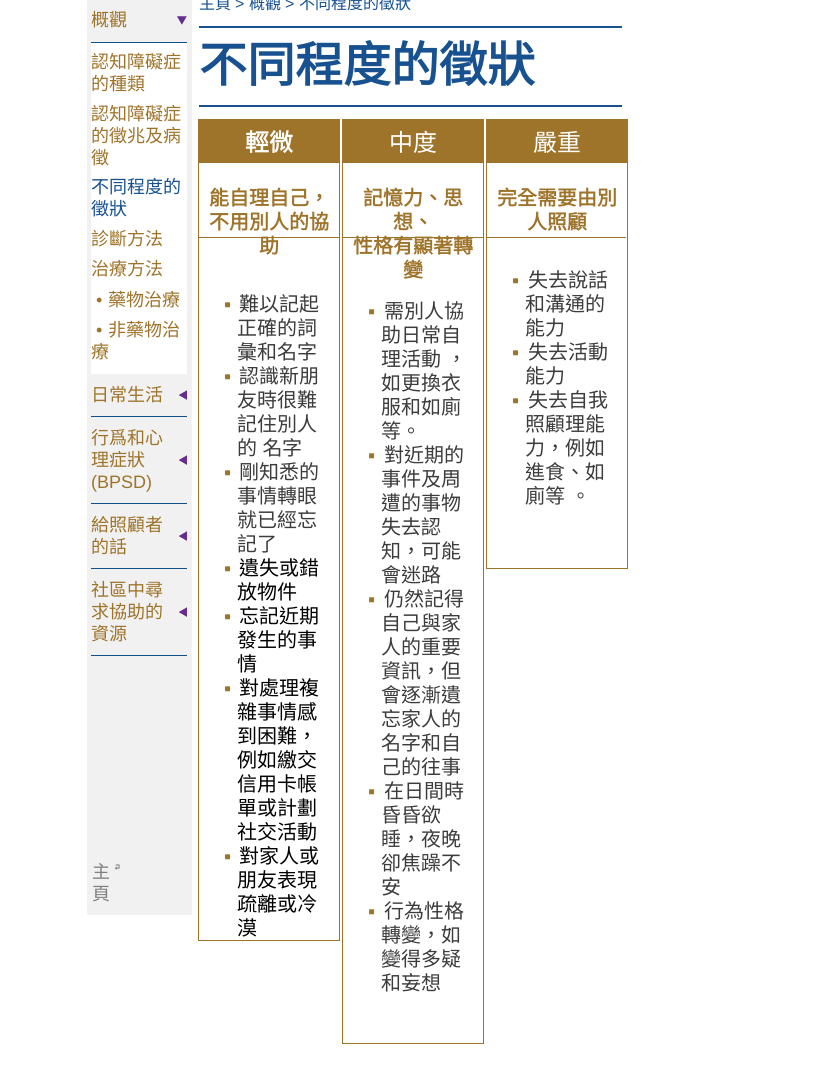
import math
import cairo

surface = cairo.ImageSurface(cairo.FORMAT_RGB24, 831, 1087)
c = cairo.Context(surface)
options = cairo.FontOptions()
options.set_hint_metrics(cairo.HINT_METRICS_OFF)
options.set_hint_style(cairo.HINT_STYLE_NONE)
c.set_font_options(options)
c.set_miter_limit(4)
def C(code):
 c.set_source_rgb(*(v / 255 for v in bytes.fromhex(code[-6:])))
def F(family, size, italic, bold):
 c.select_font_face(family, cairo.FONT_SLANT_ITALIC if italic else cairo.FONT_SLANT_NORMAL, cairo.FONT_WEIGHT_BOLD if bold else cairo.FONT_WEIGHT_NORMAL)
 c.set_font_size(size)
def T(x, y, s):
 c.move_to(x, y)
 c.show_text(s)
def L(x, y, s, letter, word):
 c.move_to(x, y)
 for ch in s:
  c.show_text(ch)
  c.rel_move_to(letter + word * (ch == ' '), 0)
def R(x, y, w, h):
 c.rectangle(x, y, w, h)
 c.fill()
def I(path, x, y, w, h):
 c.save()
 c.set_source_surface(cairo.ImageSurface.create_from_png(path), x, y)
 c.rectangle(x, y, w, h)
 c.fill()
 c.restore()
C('ffffff')
c.paint()
F('Noto Sans CJK TC',16,0,0)
C('18518f')
T(199,9,'主頁')
F('Liberation Sans',16,0,0)
T(235,9,'>')
F('Noto Sans CJK TC',16,0,0)
T(249,9,'概觀')
F('Liberation Sans',16,0,0)
T(285,9,'>')
F('Noto Sans CJK TC',16,0,0)
T(299,9,'不同程度的徵狀')
C('f1f1f1')
R(87,0,105,915)
I('1.png',177,16,10,9)
C('10508a')
R(91,42,96,1)
F('Noto Sans CJK TC',18,0,0)
C('9e732a')
T(91,26,'概觀')
C('ffffff')
R(91,43,96,331)
C('9e732a')
T(91,68,'認知障礙症')
T(91,90,'的種類')
T(91,120,'認知障礙症')
T(91,142,'的徵兆及病')
T(91,164,'徵')
C('18518f')
T(91,193,'不同程度的')
T(91,215,'徵狀')
C('9e732a')
T(91,245,'診斷方法')
T(91,275,'治療方法')
F('Liberation Sans',18,0,0)
T(96,306,'•')
F('Noto Sans CJK TC',18,0,0)
T(108,306,'藥物治療')
F('Liberation Sans',18,0,0)
T(96,336,'•')
F('Noto Sans CJK TC',18,0,0)
T(108,336,'非藥物治')
T(91,358,'療')
I('2.png',179,390,8,10)
C('10508a')
R(91,416,96,1)
C('9e732a')
T(91,401,'日常生活')
I('2.png',179,455,8,10)
C('10508a')
R(91,503,96,1)
C('9e732a')
T(91,444,'行爲和心')
T(91,466,'理症狀')
F('Liberation Sans',18,0,0)
T(91,488,'(BPSD)')
I('2.png',179,531,8,10)
C('10508a')
R(91,568,96,1)
F('Noto Sans CJK TC',18,0,0)
C('9e732a')
T(91,531,'給照顧者')
T(91,553,'的話')
I('2.png',179,607,8,10)
C('10508a')
R(91,655,96,1)
C('9e732a')
T(91,596,'社區中尋')
T(91,618,'求協助的')
T(91,640,'資源')
C('7f7f7f')
T(92,878,'主')
T(92,900,'頁')
I('3.png',114,864,6,6)
C('18518f')
R(199,26,423,2)
F('Noto Sans CJK TC',48,0,1)
T(199,82,'不同程度的徵狀')
R(199,105,423,2)
C('9e732a')
R(199,237,140,1)
c.rectangle(198.5,119.5,141,821)
c.set_line_width(1)
c.stroke()
R(199,120,140,43)
F('Noto Sans CJK TC',24,0,1)
C('ffffff')
T(245,151,'輕微')
F('Noto Sans CJK TC',20,0,1)
C('9e732a')
T(209,205,'能自理自己，')
T(209,229,'不用別人的協')
T(259,253,'助')
F('Liberation Sans',20,0,0)
T(224,311,'▪')
F('Noto Sans CJK TC',20,0,0)
C('3c3c3c')
T(239,311,'難以記起')
T(237,335,'正確的詞')
T(237,359,'彙和名字')
F('Liberation Sans',20,0,0)
C('9e732a')
T(224,383,'▪')
F('Noto Sans CJK TC',20,0,0)
C('3c3c3c')
T(239,383,'認識新朋')
T(237,407,'友時很難')
T(237,431,'記住別人')
L(237,455,'的 名',0,1)
L(282,455,'字',-1,0)
F('Liberation Sans',20,0,0)
C('9e732a')
T(224,479,'▪')
F('Noto Sans CJK TC',20,0,0)
C('3c3c3c')
T(239,479,'剛知悉的')
T(237,503,'事情轉眼')
T(237,527,'就已經忘')
T(237,551,'記了')
F('Liberation Sans',20,0,0)
C('9e732a')
T(224,575,'▪')
F('Noto Sans CJK TC',20,0,0)
C('000000')
T(239,575,'遺失或錯')
T(237,599,'放物件')
F('Liberation Sans',20,0,0)
C('9e732a')
T(224,623,'▪')
F('Noto Sans CJK TC',20,0,0)
C('000000')
T(239,623,'忘記近期')
T(237,647,'發生的事')
T(237,671,'情')
F('Liberation Sans',20,0,0)
C('9e732a')
T(224,695,'▪')
F('Noto Sans CJK TC',20,0,0)
C('000000')
T(239,695,'對處理複')
T(237,719,'雜事情感')
T(237,743,'到困難，')
T(237,767,'例如繳交')
T(237,791,'信用卡帳')
T(237,815,'單或計劃')
T(237,839,'社交活動')
F('Liberation Sans',20,0,0)
C('9e732a')
T(224,863,'▪')
F('Noto Sans CJK TC',20,0,0)
C('000000')
T(239,863,'對家人或')
T(237,887,'朋友表現')
T(237,911,'疏離或冷')
T(237,935,'漠')
C('9e732a')
R(343,237,140,1)
c.rectangle(342.5,119.5,141,924)
c.stroke()
R(343,120,140,43)
F('Noto Sans CJK TC',24,0,0)
C('ffffff')
T(389,151,'中度')
F('Noto Sans CJK TC',20,0,1)
C('9e732a')
T(363,205,'記憶力、思')
T(393,229,'想、')
T(353,253,'性格有顯著轉')
T(403,277,'變')
F('Liberation Sans',20,0,0)
T(368,318,'▪')
F('Noto Sans CJK TC',20,0,0)
C('3c3c3c')
T(384,318,'需別人協')
T(381,342,'助日常自')
L(381,366,'理活動 ，',0,1)
T(381,390,'如更換衣')
T(381,414,'服和如廁')
T(381,438,'等。')
F('Liberation Sans',20,0,0)
C('9e732a')
T(368,462,'▪')
F('Noto Sans CJK TC',20,0,0)
C('3c3c3c')
T(384,462,'對近期的')
T(381,486,'事件及周')
T(381,510,'遭的事物')
T(381,534,'失去認')
T(381,558,'知，可能')
T(381,582,'會迷路')
F('Liberation Sans',20,0,0)
C('9e732a')
T(368,606,'▪')
F('Noto Sans CJK TC',20,0,0)
C('3c3c3c')
T(384,606,'仍然記得')
T(381,630,'自己與家')
T(381,654,'人的重要')
T(381,678,'資訊，但')
T(381,702,'會逐漸遺')
T(381,726,'忘家人的')
T(381,750,'名字和自')
T(381,774,'己的往事')
F('Liberation Sans',20,0,0)
C('9e732a')
T(368,798,'▪')
F('Noto Sans CJK TC',20,0,0)
C('3c3c3c')
T(384,798,'在日間時')
T(381,822,'昏昏欲')
T(381,846,'睡，夜晚')
T(381,870,'卻焦躁不')
T(381,894,'安')
F('Liberation Sans',20,0,0)
C('9e732a')
T(368,918,'▪')
F('Noto Sans CJK TC',20,0,0)
C('3c3c3c')
T(384,918,'行為性格')
T(381,942,'轉變，如')
T(381,966,'變得多疑')
T(381,990,'和妄想')
C('9e732a')
R(487,237,139,1)
c.rectangle(486.5,119.5,141,449)
c.stroke()
R(487,120,140,43)
F('Noto Sans CJK TC',24,0,0)
C('ffffff')
T(533,151,'嚴重')
F('Noto Sans CJK TC',20,0,1)
C('9e732a')
T(497,205,'完全需要由別')
T(527,229,'人照顧')
F('Liberation Sans',20,0,0)
T(512,287,'▪')
F('Noto Sans CJK TC',20,0,0)
C('3c3c3c')
T(528,287,'失去說話')
T(525,311,'和溝通的')
T(525,335,'能力')
F('Liberation Sans',20,0,0)
C('9e732a')
T(512,359,'▪')
F('Noto Sans CJK TC',20,0,0)
C('3c3c3c')
T(528,359,'失去活動')
T(525,383,'能力')
F('Liberation Sans',20,0,0)
C('9e732a')
T(512,407,'▪')
F('Noto Sans CJK TC',20,0,0)
C('3c3c3c')
T(528,407,'失去自我')
T(525,431,'照顧理能')
T(525,455,'力，例如')
T(525,479,'進食、如')
L(525,503,'廁等 。',0,1)
surface.write_to_png('o.png')
